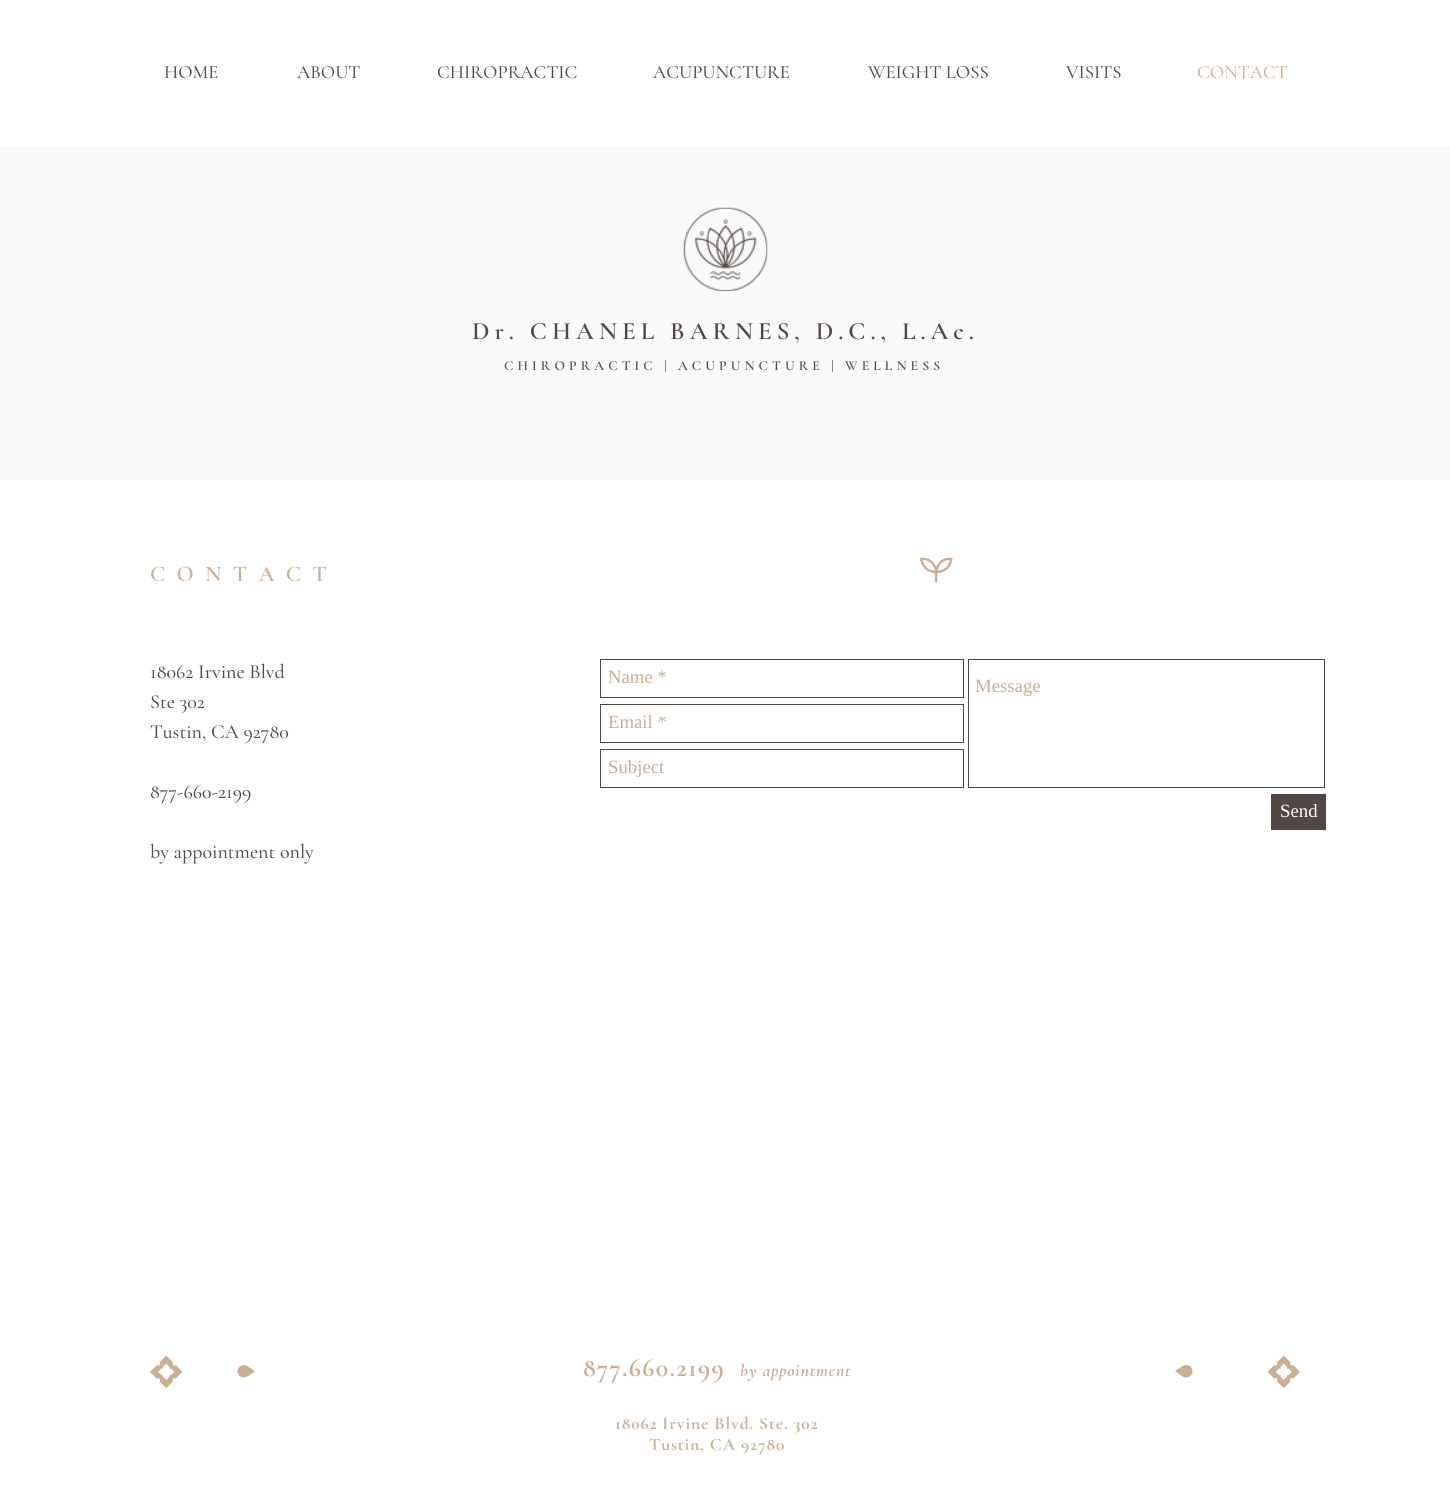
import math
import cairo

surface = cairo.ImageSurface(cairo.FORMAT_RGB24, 1450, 1486)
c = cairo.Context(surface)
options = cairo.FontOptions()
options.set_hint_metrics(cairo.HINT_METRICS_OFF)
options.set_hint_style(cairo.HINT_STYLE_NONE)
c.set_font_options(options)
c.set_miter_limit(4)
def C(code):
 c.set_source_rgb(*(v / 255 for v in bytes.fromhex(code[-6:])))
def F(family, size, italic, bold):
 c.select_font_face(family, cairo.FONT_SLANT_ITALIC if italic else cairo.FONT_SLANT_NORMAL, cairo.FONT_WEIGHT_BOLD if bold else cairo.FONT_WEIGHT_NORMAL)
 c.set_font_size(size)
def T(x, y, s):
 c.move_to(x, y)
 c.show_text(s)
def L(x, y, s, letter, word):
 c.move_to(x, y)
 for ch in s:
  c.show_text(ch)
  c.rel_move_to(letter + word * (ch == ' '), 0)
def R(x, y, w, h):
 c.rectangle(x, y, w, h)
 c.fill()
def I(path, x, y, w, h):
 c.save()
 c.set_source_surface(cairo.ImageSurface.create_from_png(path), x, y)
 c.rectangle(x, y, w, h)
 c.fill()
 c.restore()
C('ffffff')
c.paint()
F('Cormorant Garamond Medium',18.75,0,0)
C('534745')
T(164,78,'HOME')
T(297,78,'ABOUT')
T(437,78,'CHIROPRACTIC')
T(653,78,'ACUPUNCTURE')
T(868,78,'WEIGHT LOSS')
T(1066,78,'VISITS')
C('ccae93')
T(1197,78,'CONTACT')
C('fafafa')
R(0,146,1450,334)
I('1.png',683,207,85,85)
F('Cormorant Garamond SemiBold',25,0,0)
C('534745')
L(472,339,'Dr. CHANEL BARNES, D.C., L.Ac.',5,0)
F('Cormorant Garamond SemiBold',13.75,0,0)
L(504,370,'CHIROPRACTIC | ACUPUNCTURE | WELLNESS',4.1,0)
F('Cormorant Garamond SemiBold',22.5,0,0)
C('ccae93')
L(150,581,'CONTACT',11.25,0)
I('2.png',920,557,33,26)
F('Cormorant Garamond Medium',20,0,0)
C('534745')
T(150,678,'18062 Irvine Blvd')
T(150,708,'Ste 302')
T(150,738,'Tustin, CA 92780')
T(150,798,'877-660-2199')
T(150,858,'by appointment only')
c.rectangle(600.5,659.5,363,38)
c.set_line_width(1)
c.stroke()
F('Liberation Serif',18.75,0,0)
C('ccae93')
T(608,683,'Name *')
c.rectangle(968.5,659.5,356,128)
C('534745')
c.stroke()
C('ccae93')
T(975,692,'Message')
c.rectangle(600.5,704.5,363,38)
C('534745')
c.stroke()
C('ccae93')
T(608,728,'Email *')
c.rectangle(600.5,749.5,363,38)
C('534745')
c.stroke()
C('ccae93')
T(608,773,'Subject')
C('534745')
R(1271,794,55,36)
C('ffffff')
T(1280,817,'Send')
I('3.png',150,1355,33,33)
I('4.png',237,1365,18,13)
F('Cormorant Garamond',26.25,0,1)
C('ccae93')
L(583,1376,'877.660.2199',1.25,0)
F('Cormorant Garamond',17.5,1,1)
L(740,1376,'by appointment',.9,0)
I('5.png',1175,1365,18,13)
I('6.png',1267,1355,33,33)
F('Cormorant Garamond',17.5,0,1)
L(615,1429,'18062 Irvine Blvd. Ste. 302',.9,0)
L(649,1450,'Tustin, CA 92780',.9,0)
surface.write_to_png('o.png')
